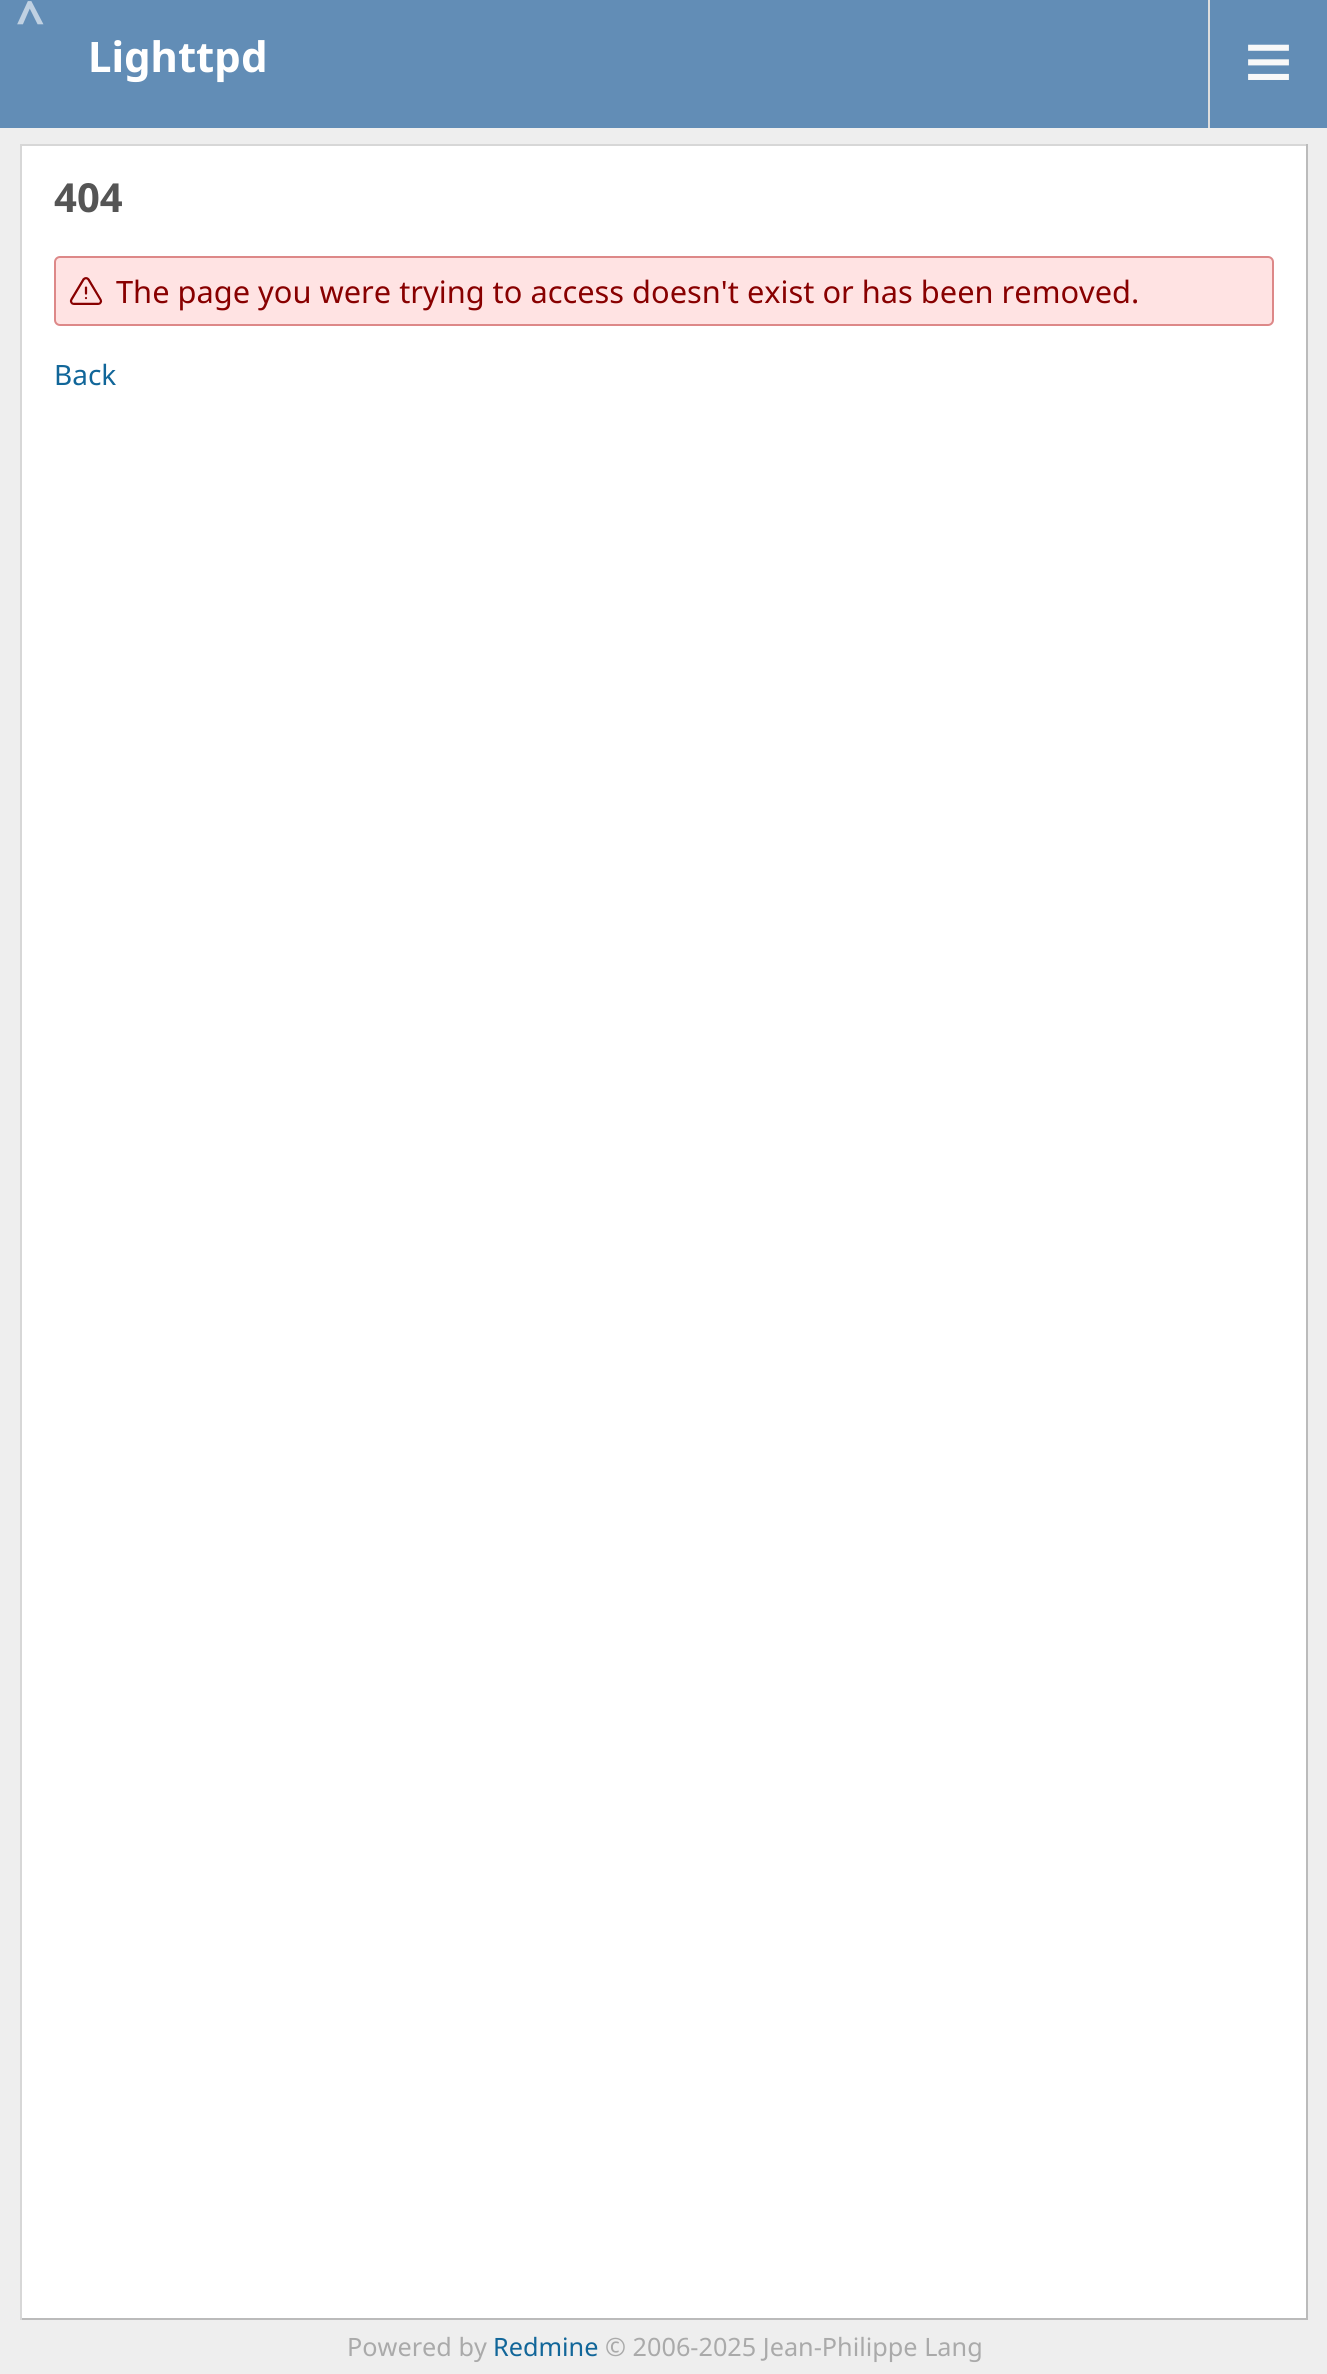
import math
import cairo

surface = cairo.ImageSurface(cairo.FORMAT_RGB24, 1327, 2374)
c = cairo.Context(surface)
options = cairo.FontOptions()
options.set_hint_metrics(cairo.HINT_METRICS_OFF)
options.set_hint_style(cairo.HINT_STYLE_NONE)
c.set_font_options(options)
c.set_miter_limit(4)
def C(code):
 c.set_source_rgb(*(v / 255 for v in bytes.fromhex(code[-6:])))
def F(family, size, italic, bold):
 c.select_font_face(family, cairo.FONT_SLANT_ITALIC if italic else cairo.FONT_SLANT_NORMAL, cairo.FONT_WEIGHT_BOLD if bold else cairo.FONT_WEIGHT_NORMAL)
 c.set_font_size(size)
def T(x, y, s):
 c.move_to(x, y)
 c.show_text(s)
def L(x, y, s, letter, word):
 c.move_to(x, y)
 for ch in s:
  c.show_text(ch)
  c.rel_move_to(letter + word * (ch == ' '), 0)
def R(x, y, w, h):
 c.rectangle(x, y, w, h)
 c.fill()
def Q(x, y, w, h, r):
 c.new_sub_path()
 for i, (u, v) in enumerate([(x + w - r, y + h - r), (x + r, y + h - r), (x + r, y + r), (x + w - r, y + r)]):
  c.arc(u, v, r, i * math.pi / 2, (i + 1) * math.pi / 2)
 c.close_path()
def I(path, x, y, w, h):
 c.save()
 c.set_source_surface(cairo.ImageSurface.create_from_png(path), x, y)
 c.rectangle(x, y, w, h)
 c.fill()
 c.restore()
C('eeeeee')
c.paint()
C('628db6')
R(0,0,1327,128)
F('Noto Sans',50,0,1)
C('c0d1e2')
L(16,37,'^',7,0)
F('Noto Sans',42,0,1)
C('ffffff')
T(88,72,'Lighttpd')
C('dddddd')
R(1208,0,2,128)
F('Liberation Sans',84,0,0)
C('f8f8f8')
T(1244,90,'≡')
C('ffffff')
R(22,146,1284,2172)
C('d7d7d7')
R(20,144,1288,2)
C('bbbbbb')
R(1306,144,2,2176)
R(20,2318,1288,2)
C('d7d7d7')
R(20,144,2,2176)
F('Noto Sans',40,0,1)
C('555555')
T(54,212,'404')
C('ffe3e3')
Q(55,257,1218,68,5)
c.fill_preserve()
C('dd8888')
c.stroke()
I('1.png',69,277,34,28)
F('Noto Sans',30.8,0,0)
C('880000')
T(116,303,'The page you were trying to access doesn\'t exist or has been removed.')
F('Noto Sans',28,0,0)
C('116699')
T(54,385,'Back')
F('Noto Sans',25.25,0,0)
C('aaaaaa')
T(347,2356,'Powered by')
C('116699')
T(493,2356,'Redmine')
C('aaaaaa')
T(605,2356,'© 2006-2025 Jean-Philippe Lang')
surface.write_to_png('o.png')
